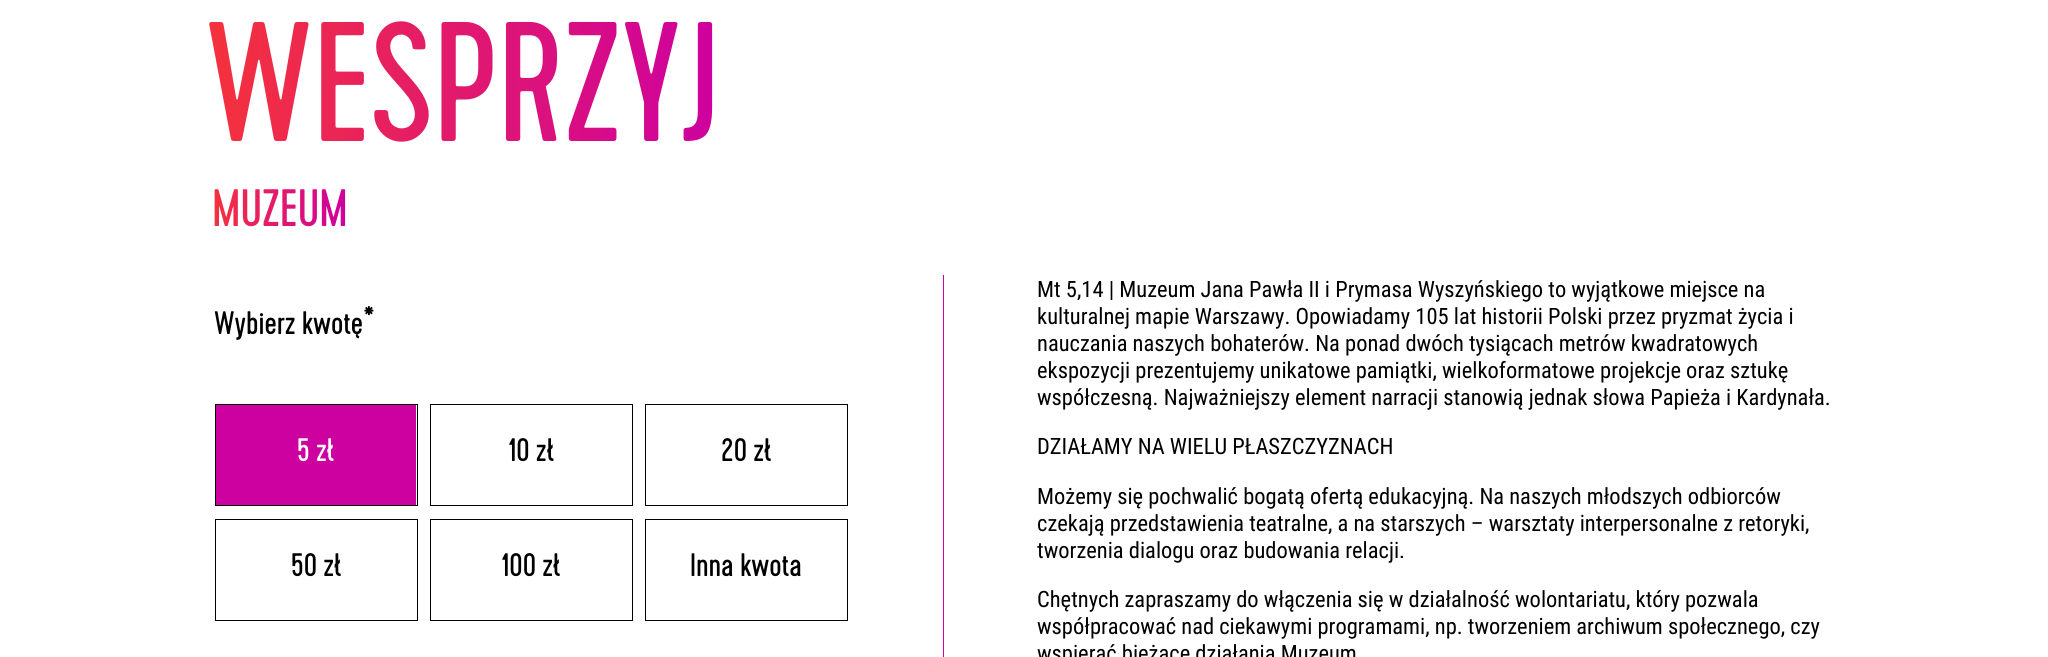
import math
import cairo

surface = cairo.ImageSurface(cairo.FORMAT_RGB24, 2048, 657)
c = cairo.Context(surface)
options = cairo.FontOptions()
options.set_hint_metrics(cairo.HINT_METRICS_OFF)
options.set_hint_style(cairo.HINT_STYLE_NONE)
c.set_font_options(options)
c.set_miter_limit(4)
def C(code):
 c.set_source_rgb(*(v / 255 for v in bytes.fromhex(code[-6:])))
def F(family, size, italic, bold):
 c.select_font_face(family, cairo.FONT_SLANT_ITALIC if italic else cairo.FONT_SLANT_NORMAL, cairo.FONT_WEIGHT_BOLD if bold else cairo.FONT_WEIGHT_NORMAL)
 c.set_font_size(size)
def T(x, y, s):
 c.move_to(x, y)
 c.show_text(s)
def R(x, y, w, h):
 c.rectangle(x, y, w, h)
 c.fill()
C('ffffff')
c.paint()
F('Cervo',170,0,0)
gradient = cairo.LinearGradient(720,132,205,132)
gradient.add_color_stop_rgba(0,0.804,0,0.627,1)
gradient.add_color_stop_rgba(1,0.961,0.196,0.235,1)
c.set_source(gradient)
T(205,141,'WESPRZYJ')
F('Cervo',52.5,0,0)
gradient = cairo.LinearGradient(347,217,212,217)
gradient.add_color_stop_rgba(0,0.804,0,0.627,1)
gradient.add_color_stop_rgba(1,0.961,0.196,0.235,1)
c.set_source(gradient)
T(212,226,'MUZEUM')
F('Cervo',32.5,0,0)
C('000000')
T(214,334,'Wybierz kwotę*')
c.rectangle(215.5,404.5,202,101)
c.set_line_width(1)
c.stroke()
C('cd00a0')
R(216,405,200,100)
C('ffffff')
T(297,461,'5 zł')
c.rectangle(430.5,404.5,202,101)
C('000000')
c.stroke()
T(508,461,'10 zł')
c.rectangle(645.5,404.5,202,101)
c.stroke()
T(721,461,'20 zł')
c.rectangle(215.5,519.5,202,101)
c.stroke()
T(291,576,'50 zł')
c.rectangle(430.5,519.5,202,101)
c.stroke()
T(501,576,'100 zł')
c.rectangle(645.5,519.5,202,101)
c.stroke()
T(690,576,'Inna kwota')
C('cd00a0')
R(943,275,1,382)
F('Roboto Condensed',22.5,0,0)
C('000000')
T(1037,297,'Mt 5,14 | Muzeum Jana Pawła II i Prymasa Wyszyńskiego to wyjątkowe miejsce na')
T(1037,324,'kulturalnej mapie Warszawy. Opowiadamy 105 lat historii Polski przez pryzmat życia i')
T(1037,351,'nauczania naszych bohaterów. Na ponad dwóch tysiącach metrów kwadratowych')
T(1037,378,'ekspozycji prezentujemy unikatowe pamiątki, wielkoformatowe projekcje oraz sztukę')
T(1037,405,'współczesną. Najważniejszy element narracji stanowią jednak słowa Papieża i Kardynała.')
T(1037,454,'DZIAŁAMY NA WIELU PŁASZCZYZNACH')
T(1037,504,'Możemy się pochwalić bogatą ofertą edukacyjną. Na naszych młodszych odbiorców')
T(1037,531,'czekają przedstawienia teatralne, a na starszych – warsztaty interpersonalne z retoryki,')
T(1037,558,'tworzenia dialogu oraz budowania relacji.')
T(1037,607,'Chętnych zapraszamy do włączenia się w działalność wolontariatu, który pozwala')
T(1037,634,'współpracować nad ciekawymi programami, np. tworzeniem archiwum społecznego, czy')
T(1037,661,'wspierać bieżące działania Muzeum')
surface.write_to_png('o.png')
